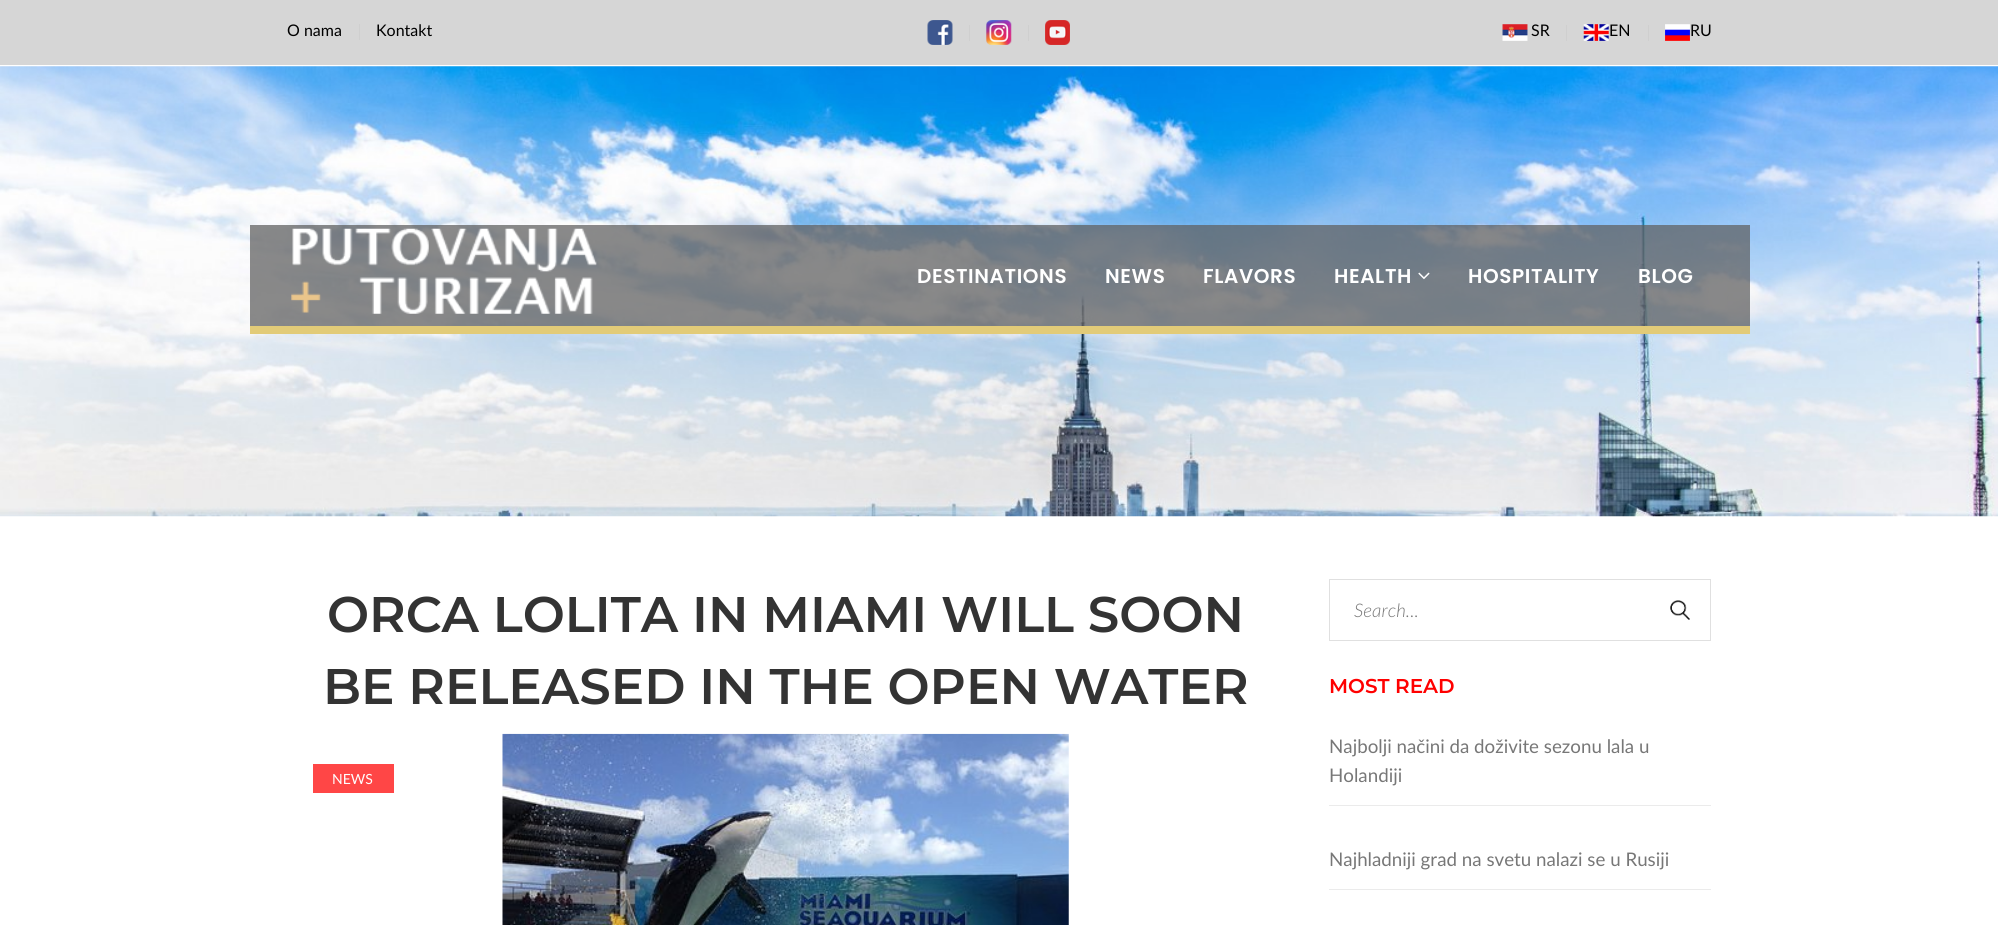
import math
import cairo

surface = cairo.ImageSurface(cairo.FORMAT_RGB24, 1998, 925)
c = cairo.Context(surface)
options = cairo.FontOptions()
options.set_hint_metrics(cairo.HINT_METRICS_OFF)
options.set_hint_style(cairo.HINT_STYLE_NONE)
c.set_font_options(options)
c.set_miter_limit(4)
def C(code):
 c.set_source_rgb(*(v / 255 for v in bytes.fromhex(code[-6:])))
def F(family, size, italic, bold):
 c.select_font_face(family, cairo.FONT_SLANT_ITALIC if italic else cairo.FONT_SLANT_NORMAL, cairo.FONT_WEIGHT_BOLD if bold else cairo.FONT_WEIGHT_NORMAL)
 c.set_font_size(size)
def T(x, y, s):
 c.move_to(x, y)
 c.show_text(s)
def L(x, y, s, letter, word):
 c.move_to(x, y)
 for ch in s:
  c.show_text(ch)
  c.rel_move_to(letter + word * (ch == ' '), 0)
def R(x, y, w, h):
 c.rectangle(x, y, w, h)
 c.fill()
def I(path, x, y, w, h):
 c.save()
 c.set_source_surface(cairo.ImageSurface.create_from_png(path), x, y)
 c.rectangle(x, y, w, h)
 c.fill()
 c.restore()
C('ffffff')
c.paint()
C('d6d6d6')
R(0,0,1998,65)
F('Lato',16,0,0)
C('000000')
T(287,36,'O nama')
C('cfcfcf')
R(359,24,1,16)
C('000000')
T(376,36,'Kontakt')
I('1.png',927,20,26,25)
C('cfcfcf')
R(969,25,1,16)
I('2.png',986,20,26,25)
R(1028,25,1,16)
I('3.png',1045,20,25,25)
I('4.png',1502,24,26,17)
C('000000')
T(1531,36,'SR')
C('cfcfcf')
R(1566,25,1,16)
I('5.png',1583,24,26,17)
C('000000')
T(1609,36,'EN')
C('cfcfcf')
R(1648,25,1,16)
I('6.png',1665,24,25,17)
C('000000')
T(1690,36,'RU')
I('7.png',0,66,1998,451)
c.set_source_rgba(0.373,0.373,0.373,0.73)
R(250,225,1500,101)
C('e2cb78')
R(250,326,1500,8)
I('8.png',291,228,306,86)
F('Poppins SemiBold',20,0,0)
C('ffffff')
L(917,283,'DESTINATIONS',.6,0)
L(1105,283,'NEWS',.6,0)
L(1203,283,'FLAVORS',.6,0)
L(1334,283,'HEALTH',.6,0)
I('9.png',1418,272,12,8)
L(1468,283,'HOSPITALITY',.6,0)
L(1638,283,'BLOG',.6,0)
F('Montserrat SemiBold',50,0,0)
C('333333')
T(327,632,'ORCA LOLITA IN MIAMI WILL SOON')
T(323,704,'BE RELEASED IN THE OPEN WATER')
C('ff4646')
R(313,764,81,29)
F('Lato',14,0,0)
C('ffffff')
T(332,784,'NEWS')
I('10.png',502,733,567,192)
c.rectangle(1329.5,579.5,381,61)
C('e0e0e0')
c.set_line_width(1)
c.stroke()
F('Lato Light',18.75,1,0)
C('777777')
T(1354,617,'Search...')
I('11.png',1670,600,20,20)
F('Montserrat SemiBold',20,0,0)
C('ff0000')
T(1329,693,'MOST READ')
C('ebebeb')
R(1329,805,382,1)
F('Lato',18.75,0,0)
C('777777')
T(1329,753,'Najbolji načini da doživite sezonu lala u')
T(1329,782,'Holandiji')
C('ebebeb')
R(1329,889,382,1)
C('777777')
T(1329,866,'Najhladniji grad na svetu nalazi se u Rusiji')
surface.write_to_png('o.png')
